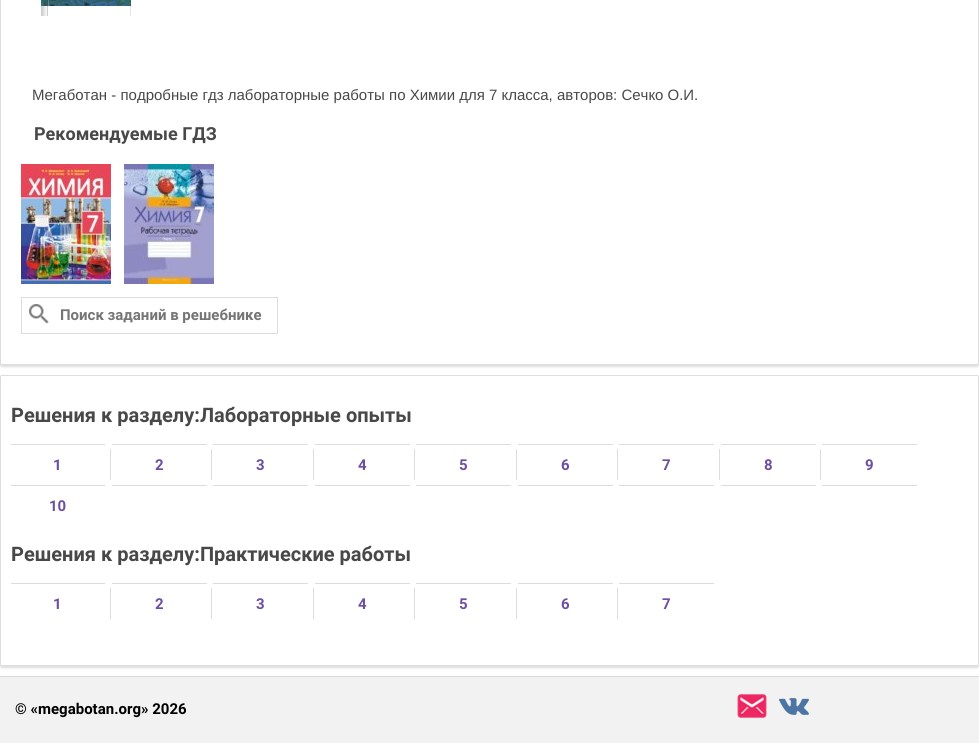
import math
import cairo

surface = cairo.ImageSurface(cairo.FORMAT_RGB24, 979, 743)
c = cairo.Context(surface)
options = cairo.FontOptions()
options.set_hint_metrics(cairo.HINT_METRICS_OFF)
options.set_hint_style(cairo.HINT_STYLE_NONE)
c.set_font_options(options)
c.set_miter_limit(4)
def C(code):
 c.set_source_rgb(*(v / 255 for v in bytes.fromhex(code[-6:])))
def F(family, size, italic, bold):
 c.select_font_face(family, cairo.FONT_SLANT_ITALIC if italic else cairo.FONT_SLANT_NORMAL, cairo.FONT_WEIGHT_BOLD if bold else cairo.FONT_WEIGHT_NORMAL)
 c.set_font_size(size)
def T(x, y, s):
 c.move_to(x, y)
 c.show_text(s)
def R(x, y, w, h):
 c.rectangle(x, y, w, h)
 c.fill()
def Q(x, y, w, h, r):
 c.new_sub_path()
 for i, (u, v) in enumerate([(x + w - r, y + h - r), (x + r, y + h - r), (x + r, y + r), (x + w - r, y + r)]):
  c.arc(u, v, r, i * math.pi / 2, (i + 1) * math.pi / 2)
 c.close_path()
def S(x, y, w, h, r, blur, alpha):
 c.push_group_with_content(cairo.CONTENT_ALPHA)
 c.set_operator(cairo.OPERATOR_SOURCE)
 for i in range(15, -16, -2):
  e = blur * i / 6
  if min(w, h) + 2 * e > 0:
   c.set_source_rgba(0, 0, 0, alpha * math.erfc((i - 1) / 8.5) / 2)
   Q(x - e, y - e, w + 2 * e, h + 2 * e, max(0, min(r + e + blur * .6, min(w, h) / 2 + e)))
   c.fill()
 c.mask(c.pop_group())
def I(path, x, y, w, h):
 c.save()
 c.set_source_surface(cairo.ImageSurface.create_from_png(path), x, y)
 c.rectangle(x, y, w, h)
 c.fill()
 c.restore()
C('ffffff')
c.paint()
C('dddddd')
S(0,-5,979,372,2,1,1)
C('ffffff')
Q(.5,-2.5,978,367,1.5)
c.fill_preserve()
C('dddddd')
c.set_line_width(1)
c.stroke()
I('1.png',41,0,90,6)
I('2.png',41,0,90,16)
F('Liberation Sans',15,0,0)
C('484848')
T(32,100,'Мегаботан - подробные гдз лабораторные работы по Химии для 7 класса, авторов: Сечко О.И.')
F('Roboto',18,0,1)
T(34,140,'Рекомендуемые ГДЗ')
I('3.png',21,164,90,120)
I('4.png',124,164,90,120)
c.rectangle(21.5,297.5,256,36)
C('dddddd')
c.stroke()
I('5.png',29,304,20,20)
F('Roboto',15,0,1)
C('757575')
T(60,320,'Поиск заданий в решебнике')
C('dddddd')
S(0,377,979,291,2,1,1)
C('ffffff')
Q(.5,375.5,978,290,1.5)
c.fill_preserve()
C('dddddd')
c.stroke()
F('Roboto',20,0,1)
C('484848')
T(11,422,'Решения к разделу:Лабораторные опыты')
C('dddddd')
R(11,444,94,1)
R(11,485,94,1)
F('Roboto',15,0,1)
C('6d4fa1')
T(53,470,'1')
C('dddddd')
R(110,449,1,31)
R(112,444,95,1)
R(112,485,95,1)
C('6d4fa1')
T(155,470,'2')
C('dddddd')
R(211,449,1,31)
R(213,444,95,1)
R(213,485,95,1)
C('6d4fa1')
T(256,470,'3')
C('dddddd')
R(313,449,1,31)
R(315,444,95,1)
R(315,485,95,1)
C('6d4fa1')
T(358,470,'4')
C('dddddd')
R(414,449,1,31)
R(416,444,95,1)
R(416,485,95,1)
C('6d4fa1')
T(459,470,'5')
C('dddddd')
R(516,449,1,31)
R(518,444,95,1)
R(518,485,95,1)
C('6d4fa1')
T(561,470,'6')
C('dddddd')
R(617,449,1,31)
R(619,444,95,1)
R(619,485,95,1)
C('6d4fa1')
T(662,470,'7')
C('dddddd')
R(719,449,1,31)
R(721,444,95,1)
R(721,485,95,1)
C('6d4fa1')
T(764,470,'8')
C('dddddd')
R(820,449,1,31)
R(822,444,95,1)
R(822,485,95,1)
C('6d4fa1')
T(865,470,'9')
T(49,511,'10')
F('Roboto',20,0,1)
C('484848')
T(11,561,'Решения к разделу:Практические работы')
C('dddddd')
R(11,583,94,1)
F('Roboto',15,0,1)
C('6d4fa1')
T(53,609,'1')
C('dddddd')
R(110,588,1,31)
R(112,583,95,1)
C('6d4fa1')
T(155,609,'2')
C('dddddd')
R(211,588,1,31)
R(213,583,95,1)
C('6d4fa1')
T(256,609,'3')
C('dddddd')
R(313,588,1,31)
R(315,583,95,1)
C('6d4fa1')
T(358,609,'4')
C('dddddd')
R(414,588,1,31)
R(416,583,95,1)
C('6d4fa1')
T(459,609,'5')
C('dddddd')
R(516,588,1,31)
R(518,583,95,1)
C('6d4fa1')
T(561,609,'6')
C('dddddd')
R(617,588,1,31)
R(619,583,95,1)
C('6d4fa1')
T(662,609,'7')
C('f2f2f2')
R(0,677,979,66)
C('dadada')
R(0,676,979,1)
C('000000')
T(15,714,'© «megabotan.org» 2026')
I('6.png',737,694,30,24)
I('7.png',779,698,30,17)
surface.write_to_png('o.png')
